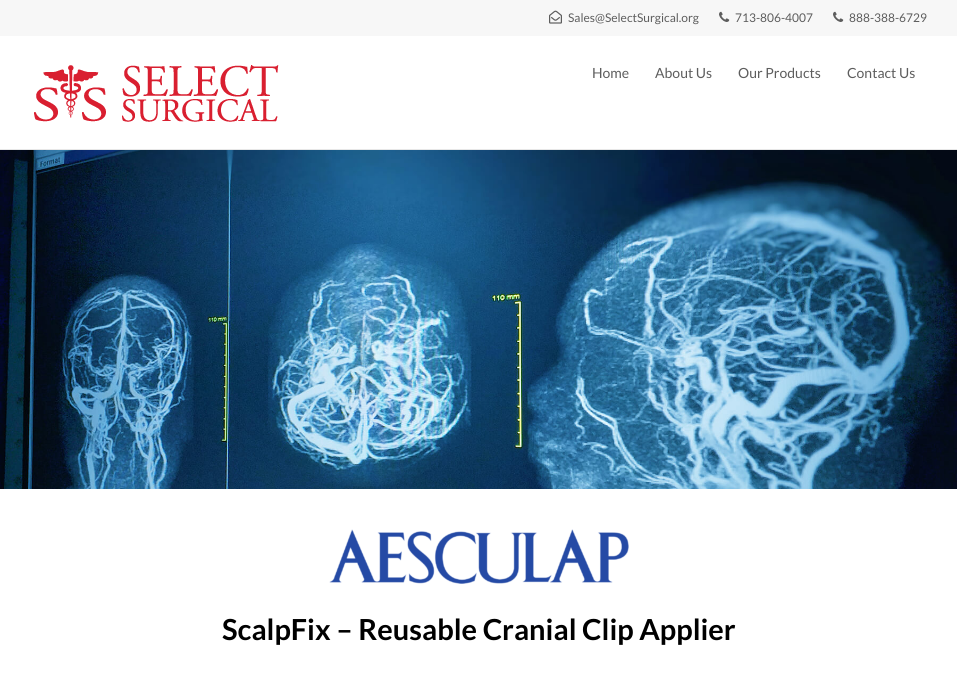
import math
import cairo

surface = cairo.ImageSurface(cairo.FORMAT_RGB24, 957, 677)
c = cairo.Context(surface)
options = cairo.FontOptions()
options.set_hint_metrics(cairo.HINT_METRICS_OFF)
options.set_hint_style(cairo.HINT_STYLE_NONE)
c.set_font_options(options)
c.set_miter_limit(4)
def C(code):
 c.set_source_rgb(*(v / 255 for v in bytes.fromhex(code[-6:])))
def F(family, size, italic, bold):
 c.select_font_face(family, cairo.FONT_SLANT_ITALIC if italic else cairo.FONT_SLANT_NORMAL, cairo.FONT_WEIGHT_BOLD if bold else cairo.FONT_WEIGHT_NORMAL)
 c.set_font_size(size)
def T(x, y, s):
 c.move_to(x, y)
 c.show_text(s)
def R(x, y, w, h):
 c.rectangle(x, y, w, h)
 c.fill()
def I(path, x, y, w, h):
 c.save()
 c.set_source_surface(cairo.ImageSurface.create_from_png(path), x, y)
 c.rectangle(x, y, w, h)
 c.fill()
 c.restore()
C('ffffff')
c.paint()
C('e7e7e7')
R(0,149,957,1)
C('f7f7f7')
R(0,0,957,36)
I('1.png',549,10,13,14)
F('Lato',12,0,0)
C('5d5d5d')
T(568,22,'Sales@SelectSurgical.org')
I('2.png',719,11,11,11)
T(735,22,'713-806-4007')
I('2.png',833,11,11,11)
T(849,22,'888-388-6729')
I('3.png',34,65,245,57)
F('Lato',14,0,0)
T(592,78,'Home')
T(655,78,'About Us')
T(738,78,'Our Products')
T(847,78,'Contact Us')
I('4.png',0,150,957,339)
I('5.png',329,529,300,55)
F('Lato',29,0,1)
C('000000')
T(222,640,'ScalpFix – Reusable Cranial Clip Applier')
surface.write_to_png('o.png')
